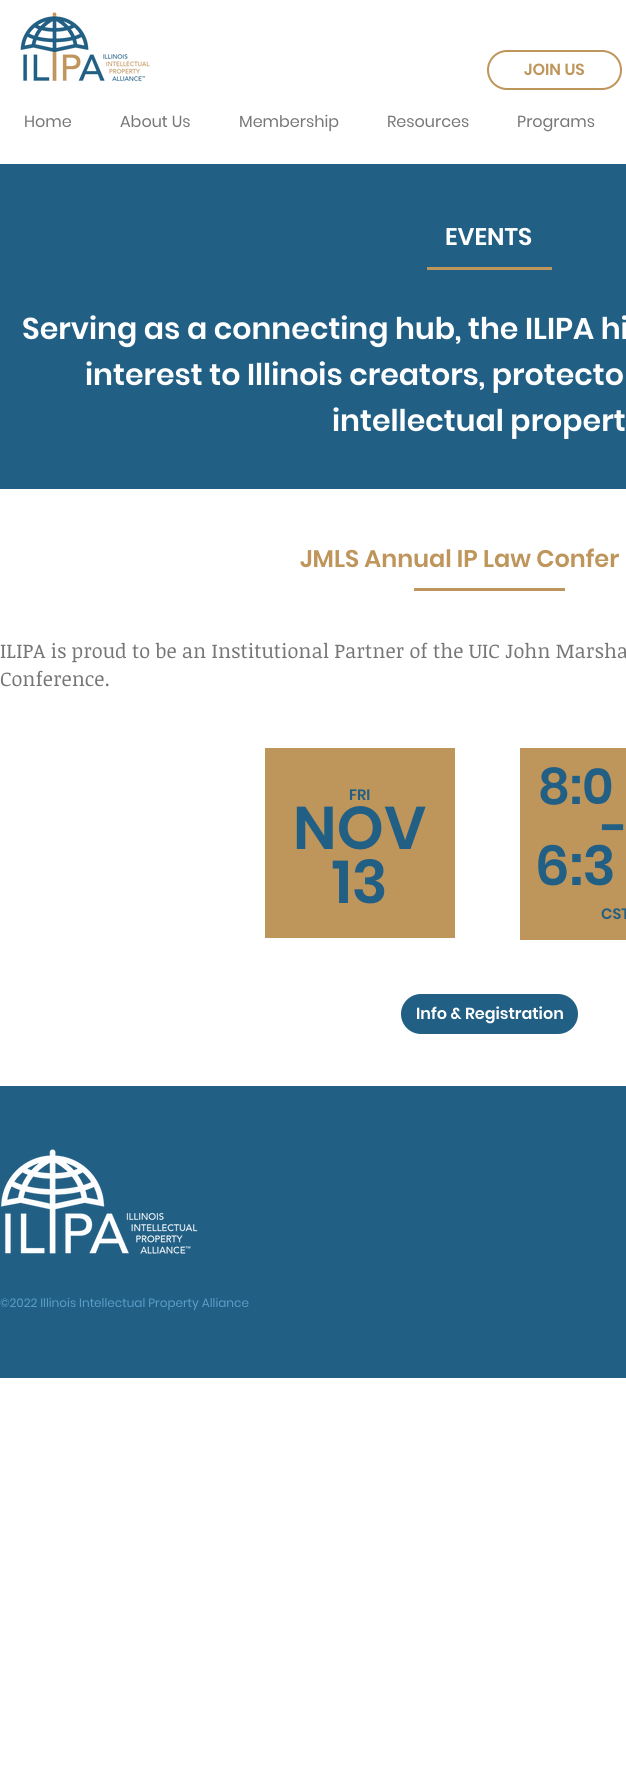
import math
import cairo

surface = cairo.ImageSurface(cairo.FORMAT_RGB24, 626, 1765)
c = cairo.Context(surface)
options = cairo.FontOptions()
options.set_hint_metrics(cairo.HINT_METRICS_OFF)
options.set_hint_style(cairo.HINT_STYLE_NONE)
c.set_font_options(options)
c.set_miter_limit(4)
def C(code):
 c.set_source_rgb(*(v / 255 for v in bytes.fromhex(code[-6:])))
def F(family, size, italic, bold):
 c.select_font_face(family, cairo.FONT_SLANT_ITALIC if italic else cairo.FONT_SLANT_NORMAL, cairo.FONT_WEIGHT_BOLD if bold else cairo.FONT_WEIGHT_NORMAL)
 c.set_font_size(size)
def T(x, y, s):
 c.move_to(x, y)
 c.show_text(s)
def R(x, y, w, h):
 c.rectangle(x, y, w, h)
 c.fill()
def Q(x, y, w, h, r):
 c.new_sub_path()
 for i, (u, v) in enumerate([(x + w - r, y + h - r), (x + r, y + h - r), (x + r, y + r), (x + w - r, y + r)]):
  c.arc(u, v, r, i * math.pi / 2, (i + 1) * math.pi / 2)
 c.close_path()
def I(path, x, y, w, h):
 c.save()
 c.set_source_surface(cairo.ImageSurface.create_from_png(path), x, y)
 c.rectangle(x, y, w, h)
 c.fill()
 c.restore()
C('ffffff')
c.paint()
I('1.png',20,12,130,70)
Q(488,51,133,38,19)
C('be955b')
c.stroke()
F('Poppins SemiBold',16,0,0)
T(524,75,'JOIN US')
F('Poppins',16,0,0)
C('767676')
T(24,127,'Home')
T(120,127,'About Us')
T(239,127,'Membership')
T(387,127,'Resources')
T(517,127,'Programs')
C('215f85')
R(0,164,626,325)
F('Poppins SemiBold',24,0,0)
C('ffffff')
T(445,245,'EVENTS')
C('be955b')
R(427,267,125,3)
F('Poppins SemiBold',30,0,0)
C('ffffff')
T(22,339,'Serving as a connecting hub, the ILIPA hi')
T(85,385,'interest to Illinois creators, protecto')
T(332,431,'intellectual propert')
F('Poppins SemiBold',24,0,0)
C('be955b')
T(300,567,'JMLS Annual IP Law Confer')
R(414,588,151,3)
F('Noticia Text',20,0,0)
C('767676')
T(0,658,'ILIPA is proud to be an Institutional Partner of the UIC John Marsha')
T(0,686,'Conference.')
C('be955b')
R(265,748,190,190)
F('Poppins SemiBold',15,0,0)
C('215f85')
T(349,800,'FRI')
F('Poppins SemiBold',60,0,0)
T(293,849,'NOV')
T(332,903,'13')
C('be955b')
R(520,748,106,192)
F('Poppins SemiBold',50,0,0)
C('215f85')
T(538,804,'8:0')
T(602,845,'-')
F('Poppins SemiBold',55,0,0)
T(535,885,'6:3')
F('Poppins SemiBold',15,0,0)
T(601,919,'CST')
Q(402,995,175,38,19)
c.fill_preserve()
c.stroke()
F('Poppins SemiBold',16,0,0)
C('ffffff')
T(416,1019,'Info & Registration')
C('215f85')
R(0,1086,626,292)
I('2.png',1,1149,197,105)
F('Poppins',12,0,0)
C('5b9ec7')
T(0,1307,'©2022 Illinois Intellectual Property Alliance')
surface.write_to_png('o.png')
